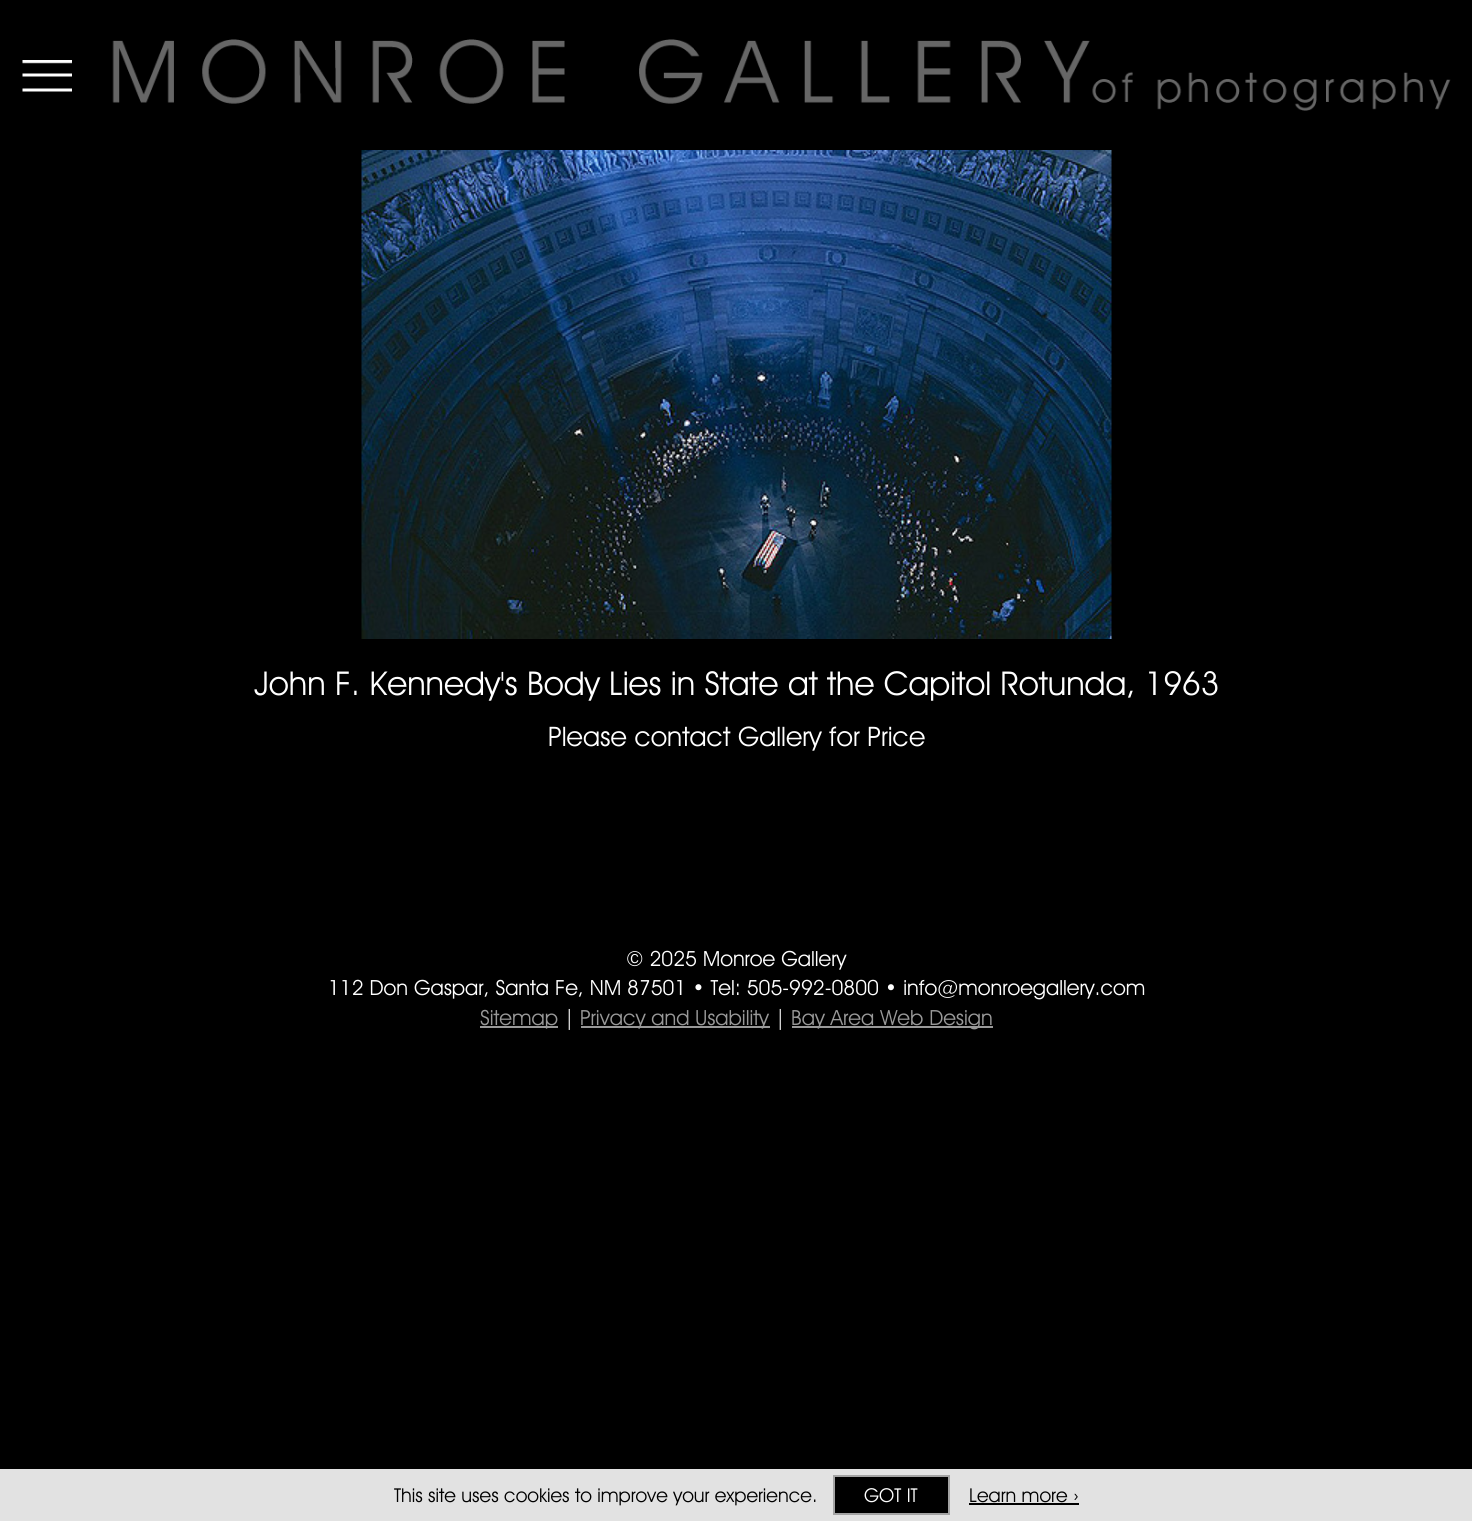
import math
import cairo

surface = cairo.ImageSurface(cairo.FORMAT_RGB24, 1472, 1521)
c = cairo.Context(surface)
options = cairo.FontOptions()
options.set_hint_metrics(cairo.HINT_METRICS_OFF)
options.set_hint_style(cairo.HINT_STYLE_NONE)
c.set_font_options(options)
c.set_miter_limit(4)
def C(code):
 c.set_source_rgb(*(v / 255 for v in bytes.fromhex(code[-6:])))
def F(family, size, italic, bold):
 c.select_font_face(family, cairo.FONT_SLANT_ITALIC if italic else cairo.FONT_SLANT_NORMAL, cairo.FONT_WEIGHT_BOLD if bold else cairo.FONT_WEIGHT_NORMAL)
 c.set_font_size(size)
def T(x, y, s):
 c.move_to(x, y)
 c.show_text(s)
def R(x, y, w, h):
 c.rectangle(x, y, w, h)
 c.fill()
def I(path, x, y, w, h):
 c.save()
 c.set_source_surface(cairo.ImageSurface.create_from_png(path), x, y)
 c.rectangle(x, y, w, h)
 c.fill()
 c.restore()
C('000000')
c.paint()
I('1.png',22,60,50,32)
I('2.png',112,39,1339,72)
I('3.png',361,150,751,489)
F('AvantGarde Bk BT',33,0,0)
C('ffffff')
T(254,695,'John F. Kennedy\'s Body Lies in State at the Capitol Rotunda, 1963')
F('AvantGarde Bk BT',27,0,0)
T(548,746,'Please contact Gallery for Price')
F('AvantGarde Bk BT',21,0,0)
T(626,966,'© 2025 Monroe Gallery')
T(328,995,'112 Don Gaspar, Santa Fe, NM 87501 • Tel: 505-992-0800 • info@monroegallery.com')
C('999999')
R(480,1026,78,2)
T(480,1025,'Sitemap')
C('ffffff')
T(564,1025,'|')
C('999999')
R(581,1026,189,2)
T(580,1025,'Privacy and Usability')
C('ffffff')
T(775,1025,'|')
C('999999')
R(792,1026,201,2)
T(791,1025,'Bay Area Web Design')
C('e2e2e2')
R(0,1469,1472,52)
F('AvantGarde Bk BT',19.2,0,0)
C('000000')
T(394,1502,'This site uses cookies to improve your experience.')
c.rectangle(834,1476,115,38)
c.fill_preserve()
C('a3a3a3')
c.stroke()
C('ffffff')
T(864,1502,'GOT IT')
C('000000')
T(969,1502,'Learn more ›')
R(969,1503,110,2)
surface.write_to_png('o.png')
